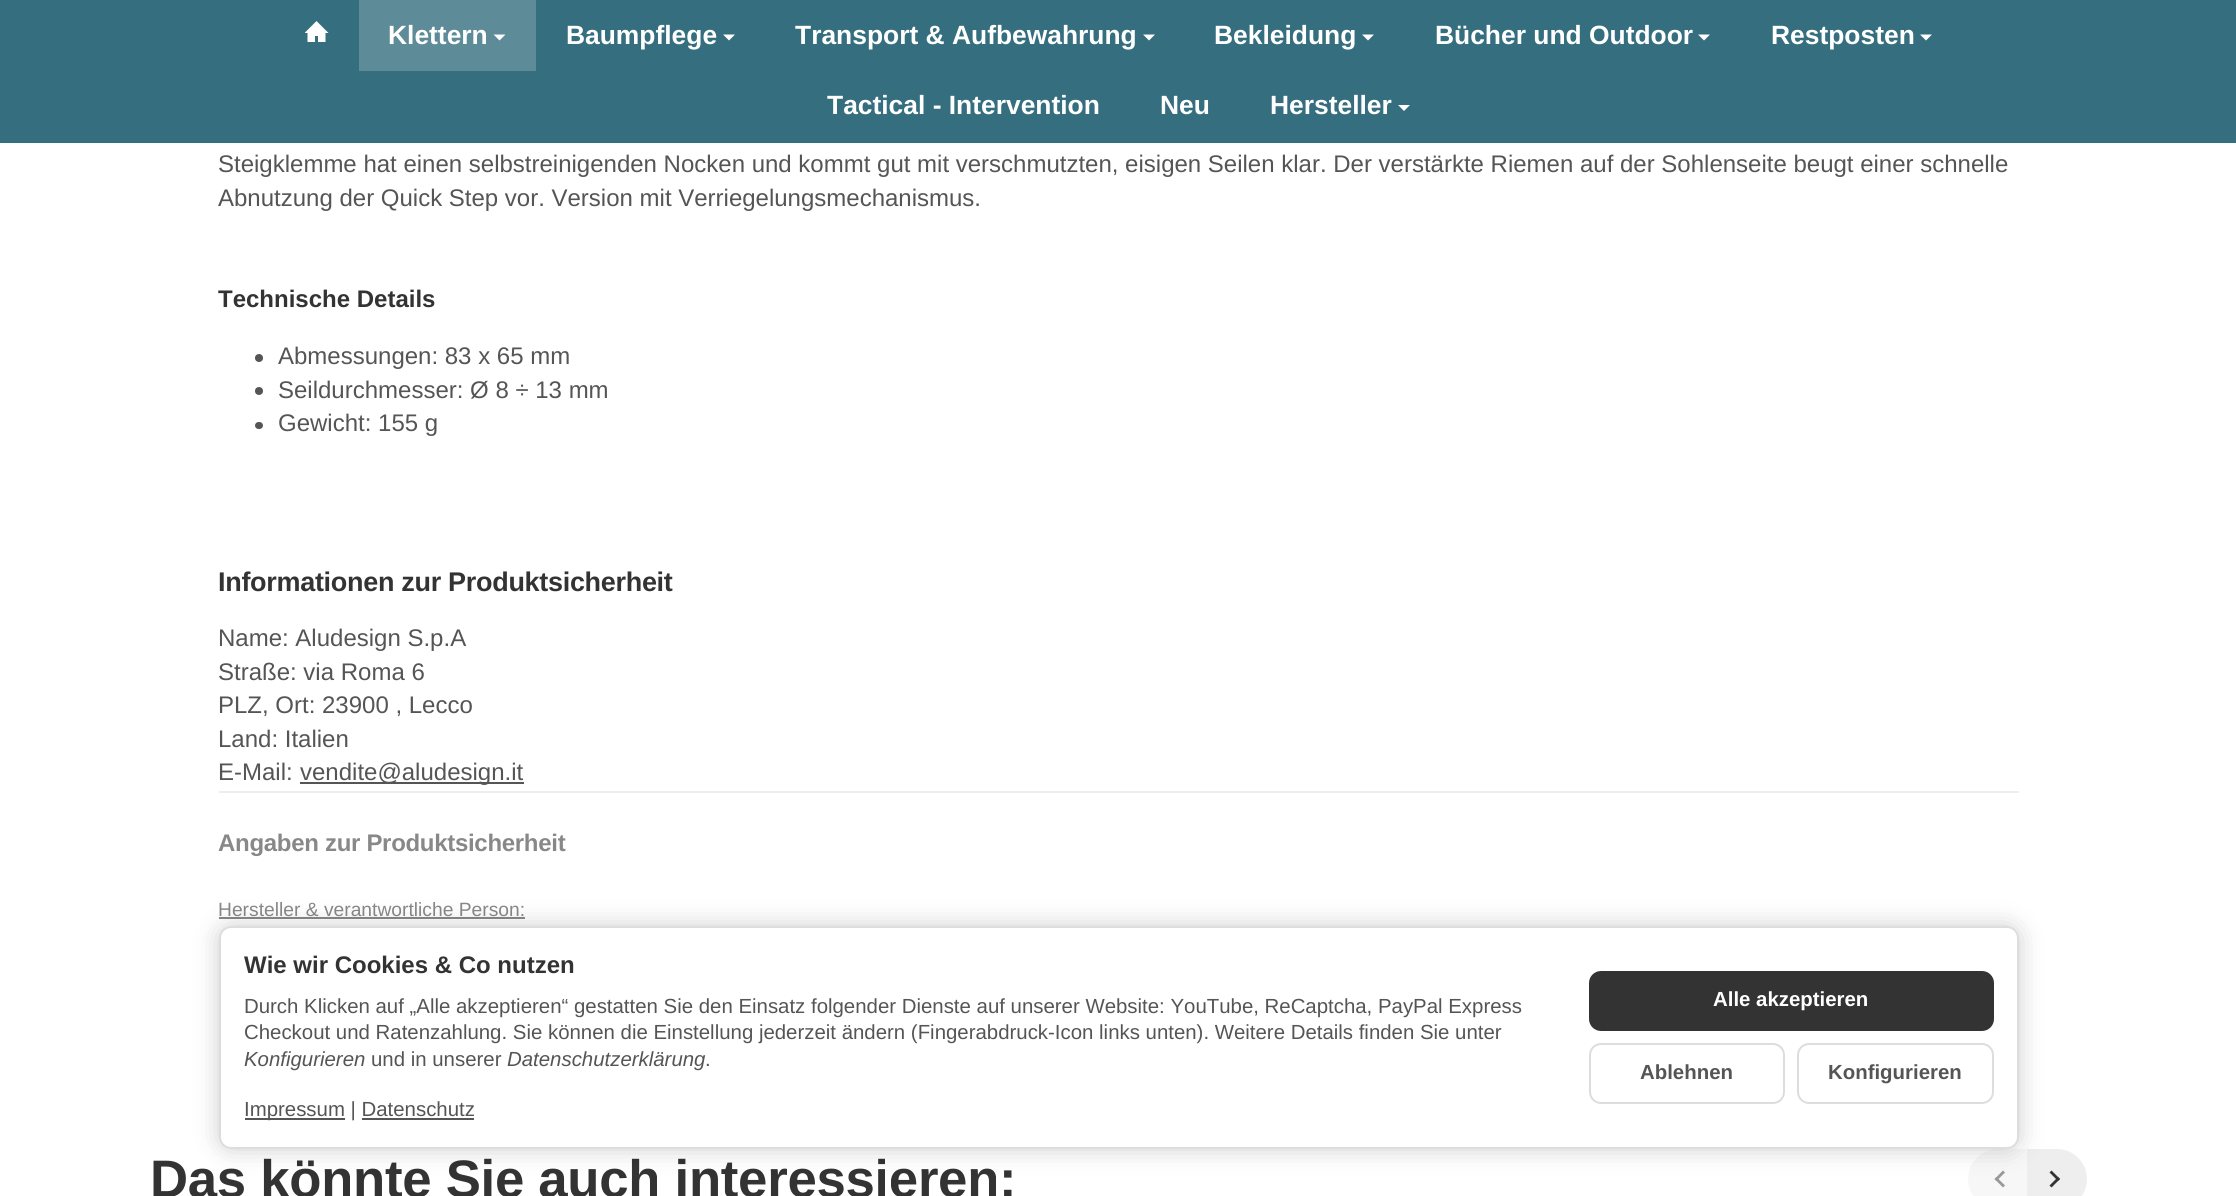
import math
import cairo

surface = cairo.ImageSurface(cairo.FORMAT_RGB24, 2236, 1196)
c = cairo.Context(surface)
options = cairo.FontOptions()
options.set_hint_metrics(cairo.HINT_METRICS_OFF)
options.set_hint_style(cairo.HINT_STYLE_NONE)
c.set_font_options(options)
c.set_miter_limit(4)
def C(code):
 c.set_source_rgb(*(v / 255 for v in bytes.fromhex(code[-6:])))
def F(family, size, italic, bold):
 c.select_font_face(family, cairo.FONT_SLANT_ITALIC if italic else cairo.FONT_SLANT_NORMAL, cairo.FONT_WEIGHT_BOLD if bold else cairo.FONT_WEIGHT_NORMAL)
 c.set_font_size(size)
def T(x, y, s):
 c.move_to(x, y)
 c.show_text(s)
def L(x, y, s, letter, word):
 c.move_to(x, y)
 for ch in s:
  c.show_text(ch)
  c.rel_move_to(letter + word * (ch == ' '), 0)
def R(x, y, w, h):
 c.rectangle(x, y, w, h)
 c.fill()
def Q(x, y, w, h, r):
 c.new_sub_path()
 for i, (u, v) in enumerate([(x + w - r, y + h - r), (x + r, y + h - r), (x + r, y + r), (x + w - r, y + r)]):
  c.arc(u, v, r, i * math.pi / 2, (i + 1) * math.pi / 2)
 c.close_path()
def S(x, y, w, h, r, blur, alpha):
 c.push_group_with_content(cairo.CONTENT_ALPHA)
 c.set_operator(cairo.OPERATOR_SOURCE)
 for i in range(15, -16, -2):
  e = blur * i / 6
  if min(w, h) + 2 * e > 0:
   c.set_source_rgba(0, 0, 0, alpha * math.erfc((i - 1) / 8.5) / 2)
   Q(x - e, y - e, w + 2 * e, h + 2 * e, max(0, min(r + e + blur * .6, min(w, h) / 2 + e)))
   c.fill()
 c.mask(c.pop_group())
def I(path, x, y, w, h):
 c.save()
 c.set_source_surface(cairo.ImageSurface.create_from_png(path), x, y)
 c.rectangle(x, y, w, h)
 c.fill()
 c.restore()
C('ffffff')
c.paint()
C('356e7e')
R(0,0,2236,143)
I('1.png',305,21,24,21)
C('5d8b98')
R(359,0,177,71)
F('Liberation Sans',26.4,0,1)
C('ffffff')
T(388,44,'Klettern')
c.new_path()
c.move_to(493.5,34.5)
c.line_to(505.5,34.5)
c.line_to(499.5,40.5)
c.close_path()
c.fill()
T(566,44,'Baumpflege')
c.new_path()
c.move_to(723,34.5)
c.line_to(735,34.5)
c.line_to(729,40.5)
c.close_path()
c.fill()
T(795,44,'Transport & Aufbewahrung')
c.new_path()
c.move_to(1143,34.5)
c.line_to(1155,34.5)
c.line_to(1149,40.5)
c.close_path()
c.fill()
T(1214,44,'Bekleidung')
c.new_path()
c.move_to(1362,34.5)
c.line_to(1374,34.5)
c.line_to(1368,40.5)
c.close_path()
c.fill()
T(1435,44,'Bücher und Outdoor')
c.new_path()
c.move_to(1698,34.5)
c.line_to(1710,34.5)
c.line_to(1704,40.5)
c.close_path()
c.fill()
T(1771,44,'Restposten')
c.new_path()
c.move_to(1920,34.5)
c.line_to(1932,34.5)
c.line_to(1926,40.5)
c.close_path()
c.fill()
T(827,114,'Tactical - Intervention')
T(1160,114,'Neu')
T(1270,114,'Hersteller')
c.new_path()
c.move_to(1398,105)
c.line_to(1410,105)
c.line_to(1404,111)
c.close_path()
c.fill()
F('Liberation Sans',24,0,0)
C('555555')
T(218,172,'Steigklemme hat einen selbstreinigenden Nocken und kommt gut mit verschmutzten, eisigen Seilen klar. Der verstärkte Riemen auf der Sohlenseite beugt einer schnelle')
T(218,206,'Abnutzung der Quick Step vor. Version mit Verriegelungsmechanismus.')
F('Liberation Sans',24,0,1)
C('333333')
T(218,307,'Technische Details')
C('555555')
c.new_path()
c.arc(259,358,4,0,2 * math.pi)
c.fill()
F('Liberation Sans',24,0,0)
T(278,364,'Abmessungen: 83 x 65 mm')
c.new_path()
c.arc(259,391,4,0,2 * math.pi)
c.fill()
T(278,398,'Seildurchmesser: Ø 8 ÷ 13 mm')
Q(255,422,8,7,3.5)
c.fill()
T(278,431,'Gewicht: 155 g')
F('Liberation Sans',27,0,1)
C('333333')
L(218,591,'Informationen zur Produktsicherheit',-.3,0)
F('Liberation Sans',24,0,0)
C('555555')
T(218,646,'Name: Aludesign S.p.A')
T(218,680,'Straße: via Roma 6')
T(218,713,'PLZ, Ort: 23900 , Lecco')
T(218,747,'Land: Italien')
T(218,780,'E-Mail:')
R(300,782,224,2)
T(300,780,'vendite@aludesign.it')
C('eeeeee')
R(219,791,1800,2)
F('Liberation Sans',24,0,1)
C('888888')
L(218,851,'Angaben zur Produktsicherheit',-.3,0)
F('Liberation Sans',19.25,0,0)
T(218,916,'Hersteller & verantwortliche Person:')
R(219,917,306,2)
F('Liberation Sans',52.75,0,1)
C('333333')
L(150,1197,'Das könnte Sie auch interessieren:',-.3,0)
C('f7f7f7')
c.new_path()
c.move_to(1998,1149)
c.line_to(2028,1149)
c.line_to(2028,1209)
c.line_to(1998,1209)
c.curve_to(1981.5,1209,1968,1195.5,1968,1179)
c.curve_to(1968,1162.5,1981.5,1149,1998,1149)
c.close_path()
c.fill()
C('999999')
c.new_path()
c.move_to(2005,1185.5)
c.line_to(2003,1187.5)
c.line_to(1994.5,1179)
c.line_to(1996.5,1177)
c.close_path()
c.fill()
c.new_path()
c.move_to(2005,1172.5)
c.line_to(1996.5,1181)
c.line_to(1994.5,1179)
c.line_to(2003,1170.5)
c.close_path()
c.fill()
C('eeeeee')
c.new_path()
c.move_to(2027,1149)
c.line_to(2057,1149)
c.curve_to(2073.5,1149,2087,1162.5,2087,1179)
c.curve_to(2087,1195.5,2073.5,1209,2057,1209)
c.line_to(2027,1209)
c.close_path()
c.fill()
C('333333')
c.new_path()
c.move_to(2049.5,1172.5)
c.line_to(2051.5,1170.5)
c.line_to(2060,1179)
c.line_to(2058,1181)
c.close_path()
c.fill()
c.new_path()
c.move_to(2049.5,1185.5)
c.line_to(2058,1177)
c.line_to(2060,1179)
c.line_to(2051.5,1187.5)
c.close_path()
c.fill()
C('000000')
S(219,926,1800,223,12,12,.2)
C('ffffff')
Q(220,927,1798,221,11)
c.fill_preserve()
C('dddddd')
c.stroke()
F('Liberation Sans',24,0,1)
C('333333')
T(244,973,'Wie wir Cookies & Co nutzen')
F('Liberation Sans',20.4,0,0)
C('555555')
T(244,1013,'Durch Klicken auf „Alle akzeptieren“ gestatten Sie den Einsatz folgender Dienste auf unserer Website: YouTube, ReCaptcha, PayPal Express')
T(244,1039,'Checkout und Ratenzahlung. Sie können die Einstellung jederzeit ändern (Fingerabdruck-Icon links unten). Weitere Details finden Sie unter')
F('Liberation Sans',20.4,1,0)
T(244,1066,'Konfigurieren')
F('Liberation Sans',20.4,0,0)
T(371,1066,'und in unserer')
F('Liberation Sans',20.4,1,0)
T(507,1066,'Datenschutzerklärung')
F('Liberation Sans',20.4,0,0)
T(705,1066,'.')
R(245,1118,100,2)
T(244,1116,'Impressum | Datenschutz')
R(362,1118,112,2)
C('333333')
Q(1590,972,403,58,11)
c.fill_preserve()
c.stroke()
F('Liberation Sans',20.4,0,1)
C('ffffff')
T(1713,1006,'Alle akzeptieren')
Q(1590,1044,194,59,11)
C('dddddd')
c.stroke()
C('555555')
T(1640,1079,'Ablehnen')
Q(1798,1044,195,59,11)
C('dddddd')
c.stroke()
C('555555')
T(1828,1079,'Konfigurieren')
surface.write_to_png('o.png')
